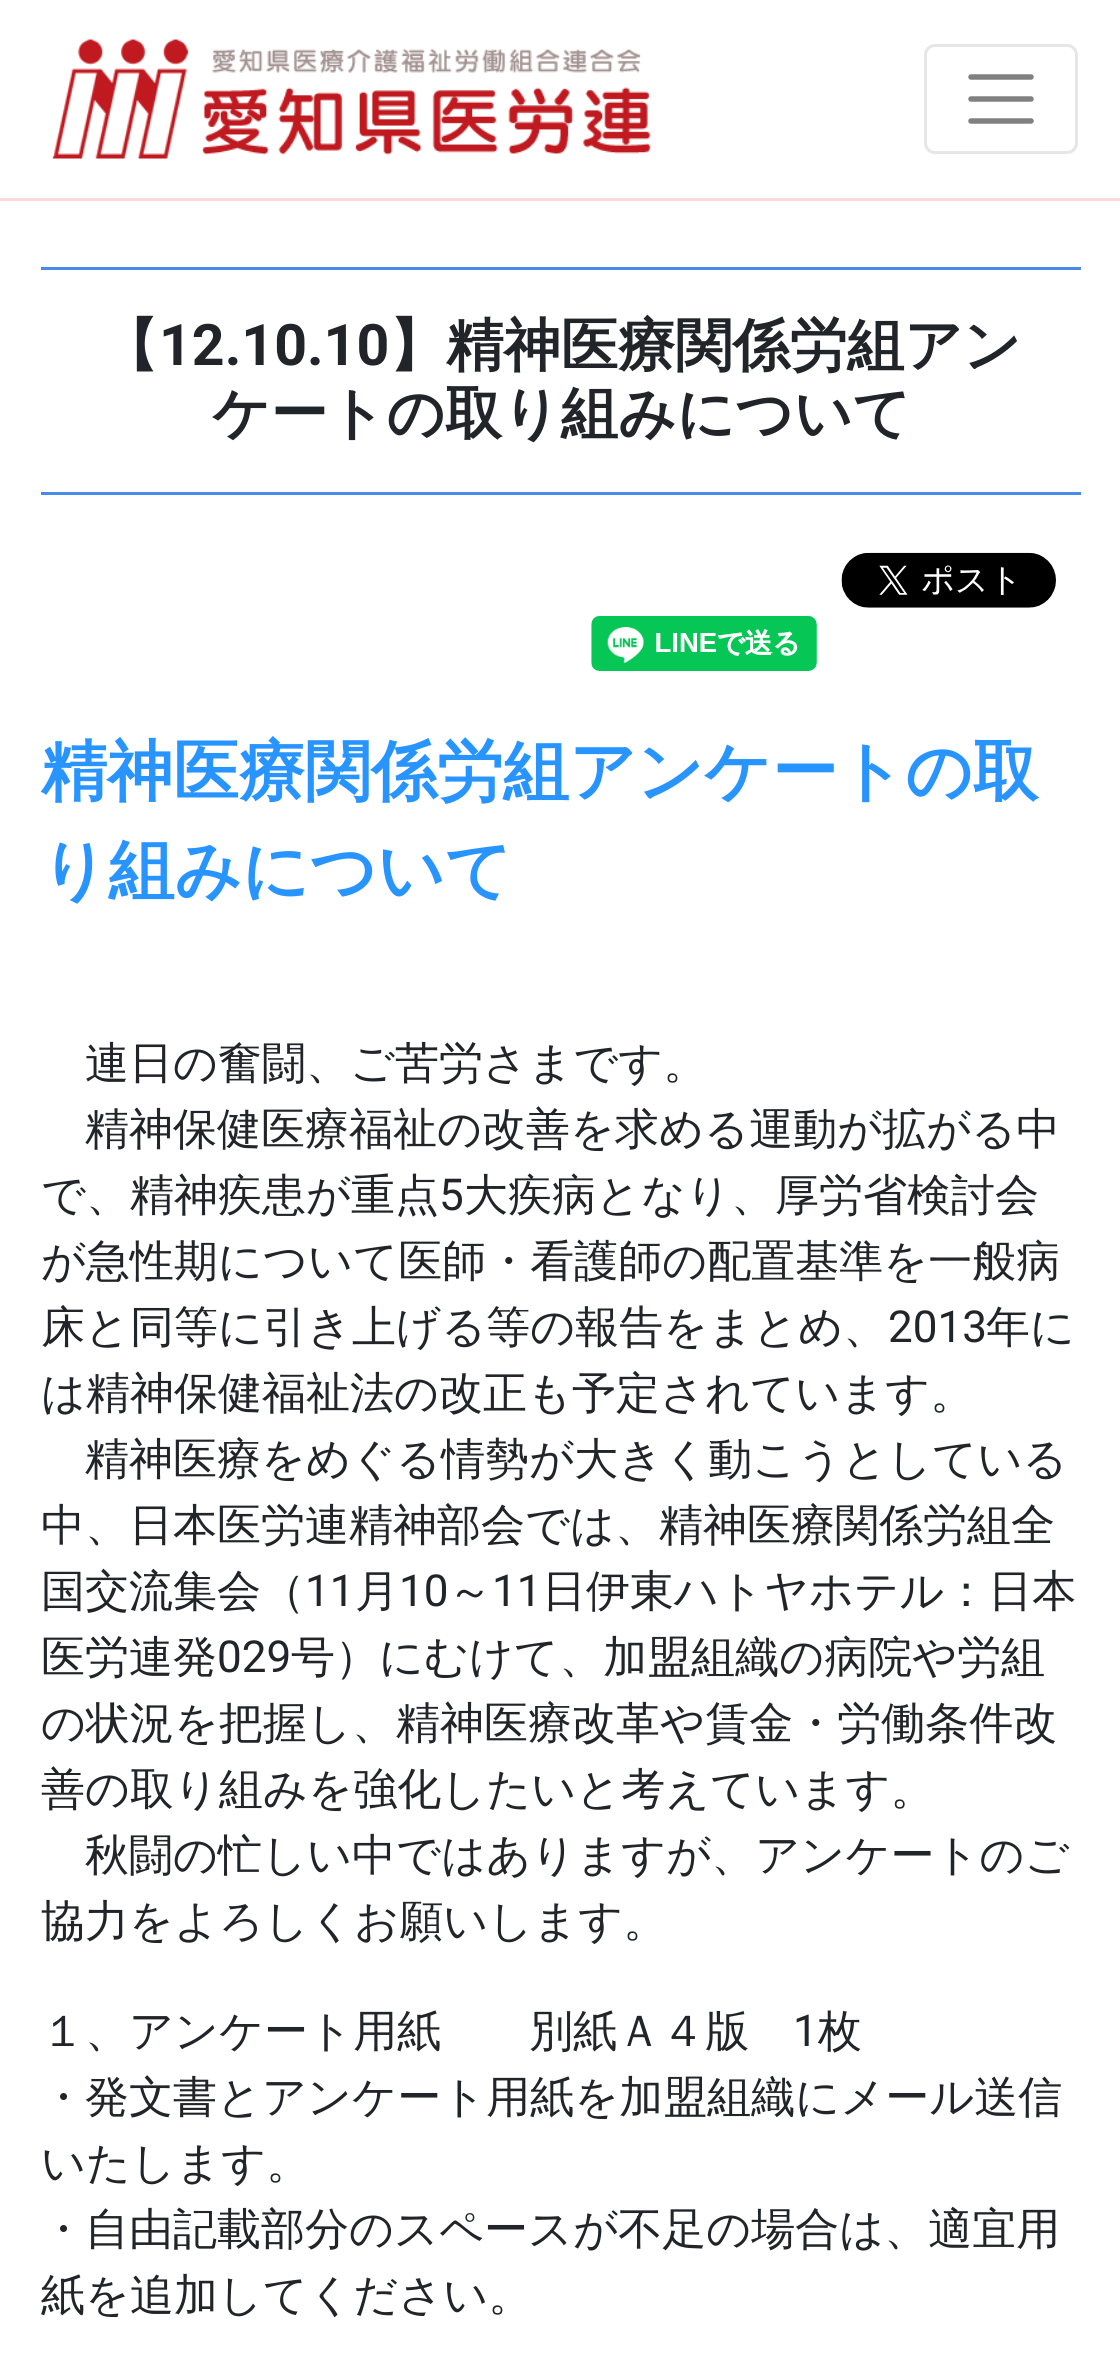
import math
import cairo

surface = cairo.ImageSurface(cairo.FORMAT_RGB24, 1120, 2380)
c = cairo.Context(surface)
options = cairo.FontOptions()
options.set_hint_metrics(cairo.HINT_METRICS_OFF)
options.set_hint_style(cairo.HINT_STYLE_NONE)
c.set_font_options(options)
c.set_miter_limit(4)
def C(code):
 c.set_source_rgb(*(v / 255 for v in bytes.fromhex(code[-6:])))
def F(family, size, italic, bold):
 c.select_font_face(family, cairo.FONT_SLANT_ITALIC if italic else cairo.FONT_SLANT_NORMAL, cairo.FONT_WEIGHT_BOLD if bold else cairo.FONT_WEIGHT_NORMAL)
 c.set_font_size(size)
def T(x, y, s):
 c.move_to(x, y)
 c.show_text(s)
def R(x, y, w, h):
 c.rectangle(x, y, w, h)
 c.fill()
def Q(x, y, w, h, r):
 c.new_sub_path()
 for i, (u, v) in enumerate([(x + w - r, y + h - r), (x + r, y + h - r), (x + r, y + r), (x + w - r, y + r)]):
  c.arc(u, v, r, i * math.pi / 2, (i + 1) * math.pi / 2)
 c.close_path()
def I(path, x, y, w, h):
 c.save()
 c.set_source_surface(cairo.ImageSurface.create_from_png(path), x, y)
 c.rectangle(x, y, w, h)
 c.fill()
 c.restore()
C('ffffff')
c.paint()
C('fedada')
R(0,198,1120,3)
I('1.png',52,39,599,120)
Q(925.5,45.5,151,107,9.5)
C('e6e6e6')
c.set_line_width(3)
c.stroke()
c.new_path()
c.move_to(971,77)
c.line_to(1031,77)
c.move_to(971,99)
c.line_to(1031,99)
c.move_to(971,121)
c.line_to(1031,121)
C('808080')
c.set_line_width(5.5)
c.set_line_cap(cairo.LINE_CAP_ROUND)
c.stroke()
C('498ae9')
R(41,267,1040,3)
R(41,492,1040,3)
F('WenQuanYi Zen Hei',57.25,0,1)
C('212529')
T(101,365,'【')
F('Roboto',57.25,0,1)
T(159,365,'12.10.10')
F('WenQuanYi Zen Hei',57.25,0,1)
T(389,365,'】精神医療関係労組アン')
T(212,433,'ケートの取り組みについて')
I('2.png',841,552,215,56)
I('3.png',591,616,226,55)
F('WenQuanYi Zen Hei',66,0,1)
C('2894ff')
T(41,794,'精神医療関係労組アンケートの取')
T(41,893,'り組みについて')
F('WenQuanYi Zen Hei Medium',44,0,0)
C('212529')
T(85,1078,'連日の奮闘、ご苦労さまです。')
T(85,1144,'精神保健医療福祉の改善を求める運動が拡がる中')
T(41,1210,'で、精神疾患が重点')
F('Roboto',44,0,0)
T(439,1210,'5')
F('WenQuanYi Zen Hei Medium',44,0,0)
T(464,1210,'大疾病となり、厚労省検討会')
T(41,1276,'が急性期について医師・看護師の配置基準を一般病')
T(41,1342,'床と同等に引き上げる等の報告をまとめ、')
F('Roboto',44,0,0)
T(888,1342,'2013')
F('WenQuanYi Zen Hei Medium',44,0,0)
T(986,1342,'年に')
T(41,1408,'は精神保健福祉法の改正も予定されています。')
T(85,1474,'精神医療をめぐる情勢が大きく動こうとしている')
T(41,1540,'中、日本医労連精神部会では、精神医療関係労組全')
T(41,1606,'国交流集会（')
F('Roboto',44,0,0)
T(305,1606,'11')
F('WenQuanYi Zen Hei Medium',44,0,0)
T(355,1606,'月')
F('Roboto',44,0,0)
T(399,1606,'10')
F('WenQuanYi Zen Hei Medium',44,0,0)
T(448,1606,'～')
F('Roboto',44,0,0)
T(492,1606,'11')
F('WenQuanYi Zen Hei Medium',44,0,0)
T(542,1606,'日伊東ハトヤホテル：日本')
T(41,1672,'医労連発')
F('Roboto',44,0,0)
T(217,1672,'029')
F('WenQuanYi Zen Hei Medium',44,0,0)
T(291,1672,'号）にむけて、加盟組織の病院や労組')
T(41,1738,'の状況を把握し、精神医療改革や賃金・労働条件改')
T(41,1804,'善の取り組みを強化したいと考えています。')
T(85,1870,'秋闘の忙しい中ではありますが、アンケートのご')
T(41,1936,'協力をよろしくお願いします。')
T(41,2046,'１、アンケート用紙　　別紙Ａ４版')
F('Roboto',44,0,0)
T(793,2046,'1')
F('WenQuanYi Zen Hei Medium',44,0,0)
T(818,2046,'枚')
T(41,2112,'・発文書とアンケート用紙を加盟組織にメール送信')
T(41,2178,'いたします。')
T(41,2244,'・自由記載部分のスペースが不足の場合は、適宜用')
T(41,2310,'紙を追加してください。')
surface.write_to_png('o.png')
